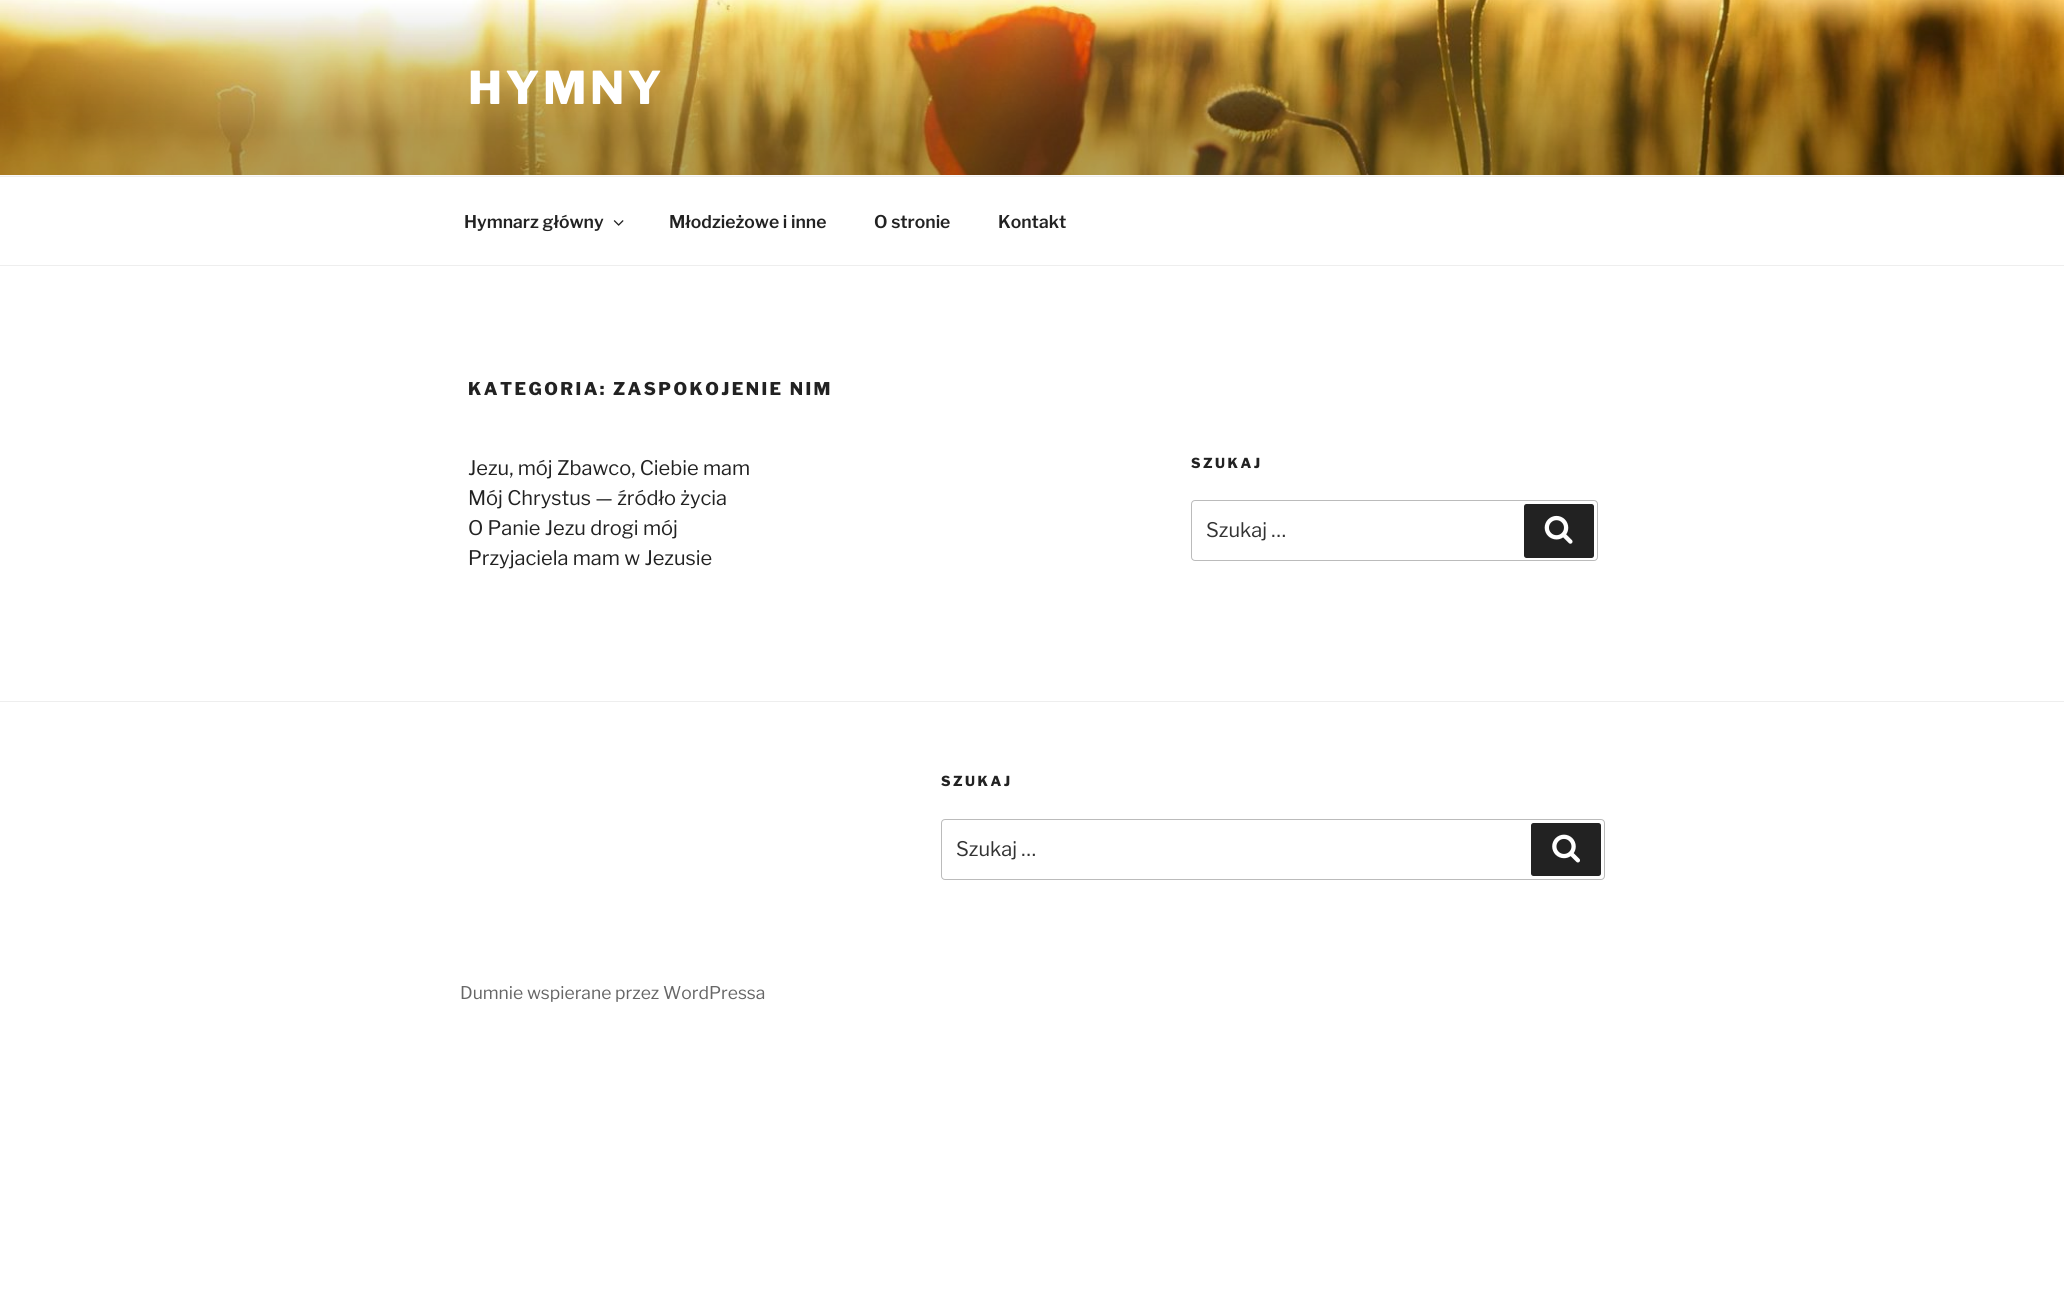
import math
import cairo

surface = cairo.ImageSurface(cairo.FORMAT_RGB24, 2064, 1308)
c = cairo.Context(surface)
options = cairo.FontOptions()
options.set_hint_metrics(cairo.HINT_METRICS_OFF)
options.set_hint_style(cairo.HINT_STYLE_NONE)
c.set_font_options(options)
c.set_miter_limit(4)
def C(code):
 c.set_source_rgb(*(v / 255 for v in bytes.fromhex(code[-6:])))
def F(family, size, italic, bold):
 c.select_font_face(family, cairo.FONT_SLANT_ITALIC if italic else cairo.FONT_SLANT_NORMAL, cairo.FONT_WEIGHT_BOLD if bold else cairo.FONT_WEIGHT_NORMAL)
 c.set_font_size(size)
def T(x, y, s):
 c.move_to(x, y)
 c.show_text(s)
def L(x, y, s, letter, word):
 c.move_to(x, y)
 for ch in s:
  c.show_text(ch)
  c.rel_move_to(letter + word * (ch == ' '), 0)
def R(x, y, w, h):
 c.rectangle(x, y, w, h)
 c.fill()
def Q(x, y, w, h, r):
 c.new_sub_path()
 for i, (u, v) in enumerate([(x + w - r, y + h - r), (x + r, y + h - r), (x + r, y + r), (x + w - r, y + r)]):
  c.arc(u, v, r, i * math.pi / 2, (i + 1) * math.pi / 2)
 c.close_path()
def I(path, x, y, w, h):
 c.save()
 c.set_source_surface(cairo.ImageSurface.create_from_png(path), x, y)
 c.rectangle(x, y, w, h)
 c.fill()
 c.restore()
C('ffffff')
c.paint()
C('fafafa')
R(0,175,2064,1)
I('1.png',0,0,2064,175)
F('Libre Franklin ExtraBold',45,0,0)
C('ffffff')
L(468,104,'HYMNY',3.5,0)
C('eeeeee')
R(0,176,2064,1)
R(0,265,2064,1)
F('Libre Franklin SemiBold',17.5,0,0)
C('222222')
T(464,228,'Hymnarz główny')
I('2.png',613,220,11,6)
T(669,228,'Młodzieżowe i inne')
T(874,228,'O stronie')
T(998,228,'Kontakt')
F('Libre Franklin ExtraBold',17.5,0,0)
L(468,395,'KATEGORIA: ZASPOKOJENIE NIM',2.45,0)
F('Libre Franklin',20,0,0)
T(468,475,'Jezu, mój Zbawco, Ciebie mam')
T(468,505,'Mój Chrystus — źródło życia')
T(468,535,'O Panie Jezu drogi mój')
T(468,565,'Przyjaciela mam w Jezusie')
F('Libre Franklin ExtraBold',13.75,0,0)
L(1191,468,'SZUKAJ',2.5,0)
Q(1191.5,500.5,406,60,3.5)
C('bbbbbb')
c.set_line_width(1)
c.stroke()
F('Libre Franklin',20,0,0)
C('333333')
T(1206,537,'Szukaj …')
C('222222')
Q(1524,504,70,54,2.5)
c.fill()
I('3.png',1544,515,29,29)
C('eeeeee')
R(0,701,2064,1)
F('Libre Franklin ExtraBold',13.75,0,0)
C('222222')
L(941,786,'SZUKAJ',2.5,0)
Q(941.5,819.5,663,60,3.5)
C('bbbbbb')
c.stroke()
F('Libre Franklin',20,0,0)
C('333333')
T(956,856,'Szukaj …')
C('222222')
Q(1531,823,70,53,2.5)
c.fill()
I('4.png',1552,834,28,29)
F('Libre Franklin',17.5,0,0)
C('666666')
T(460,999,'Dumnie wspierane przez WordPressa')
surface.write_to_png('o.png')
